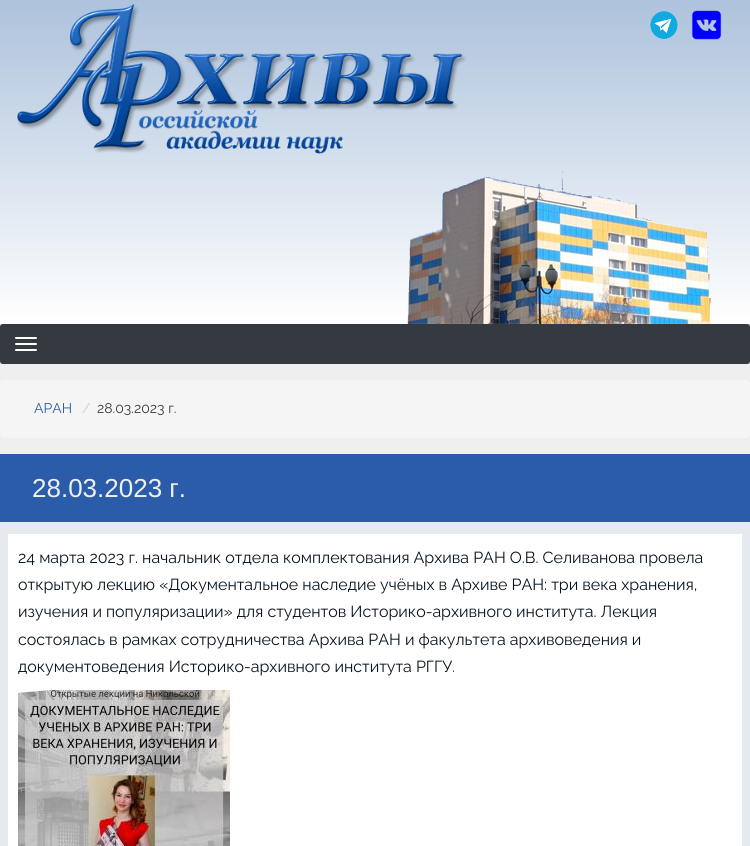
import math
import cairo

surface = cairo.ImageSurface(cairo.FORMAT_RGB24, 750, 846)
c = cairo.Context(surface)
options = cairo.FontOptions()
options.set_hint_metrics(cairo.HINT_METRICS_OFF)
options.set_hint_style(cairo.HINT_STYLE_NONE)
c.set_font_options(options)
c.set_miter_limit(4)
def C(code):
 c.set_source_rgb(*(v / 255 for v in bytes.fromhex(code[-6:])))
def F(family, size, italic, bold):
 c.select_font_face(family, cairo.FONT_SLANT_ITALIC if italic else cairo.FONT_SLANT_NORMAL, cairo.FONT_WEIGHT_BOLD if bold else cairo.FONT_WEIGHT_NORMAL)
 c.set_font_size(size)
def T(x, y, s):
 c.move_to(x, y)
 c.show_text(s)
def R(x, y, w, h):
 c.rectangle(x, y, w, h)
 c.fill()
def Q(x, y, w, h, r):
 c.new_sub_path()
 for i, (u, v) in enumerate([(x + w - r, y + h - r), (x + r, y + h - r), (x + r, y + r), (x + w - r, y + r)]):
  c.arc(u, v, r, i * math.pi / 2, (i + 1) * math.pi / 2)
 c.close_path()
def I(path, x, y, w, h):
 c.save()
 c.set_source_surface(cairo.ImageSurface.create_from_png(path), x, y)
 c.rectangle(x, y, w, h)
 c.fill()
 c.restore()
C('ffffff')
c.paint()
gradient = cairo.LinearGradient(375,324,375,0)
gradient.add_color_stop_rgba(0,1,1,1,1)
gradient.add_color_stop_rgba(1,0.678,0.761,0.863,1)
c.set_source(gradient)
R(0,0,750,314)
I('1.png',17,4,449,150)
I('2.png',650,11,28,28)
I('3.png',691,10,31,30)
I('4.png',407,171,304,153)
C('d3d3d3')
R(0,324,750,40)
C('343a40')
Q(0,324,750,40,3)
c.fill()
C('ffffff')
Q(15,337,22,2,1)
c.fill()
Q(15,343,22,2,1)
c.fill()
Q(15,349,22,2,1)
c.fill()
C('efefef')
R(0,364,750,90)
C('f5f5f5')
Q(0,380,750,58,4)
c.fill()
F('Raleway',14,0,0)
C('2a5caa')
T(34,413,'АРАН')
C('cccccc')
T(82,413,'/')
C('3a3a3a')
T(97,413,'28.03.2023 г.')
C('2a5caa')
R(0,454,750,68)
F('Liberation Sans',26,0,0)
C('efefef')
T(32,497,'28.03.2023 г.')
C('e4eaed')
R(0,522,750,324)
C('ffffff')
R(8,534,734,312)
F('Raleway',16,0,0)
C('07131e')
T(18,563,'24 марта 2023 г. начальник отдела комплектования Архива РАН О.В. Селиванова провела')
T(18,590,'открытую лекцию «Документальное наследие учёных в Архиве РАН: три века хранения,')
T(18,617,'изучения и популяризации» для студентов Историко-архивного института. Лекция')
T(18,645,'состоялась в рамках сотрудничества Архива РАН и факультета архивоведения и')
T(18,672,'документоведения Историко-архивного института РГГУ.')
I('5.png',18,690,212,156)
surface.write_to_png('o.png')
